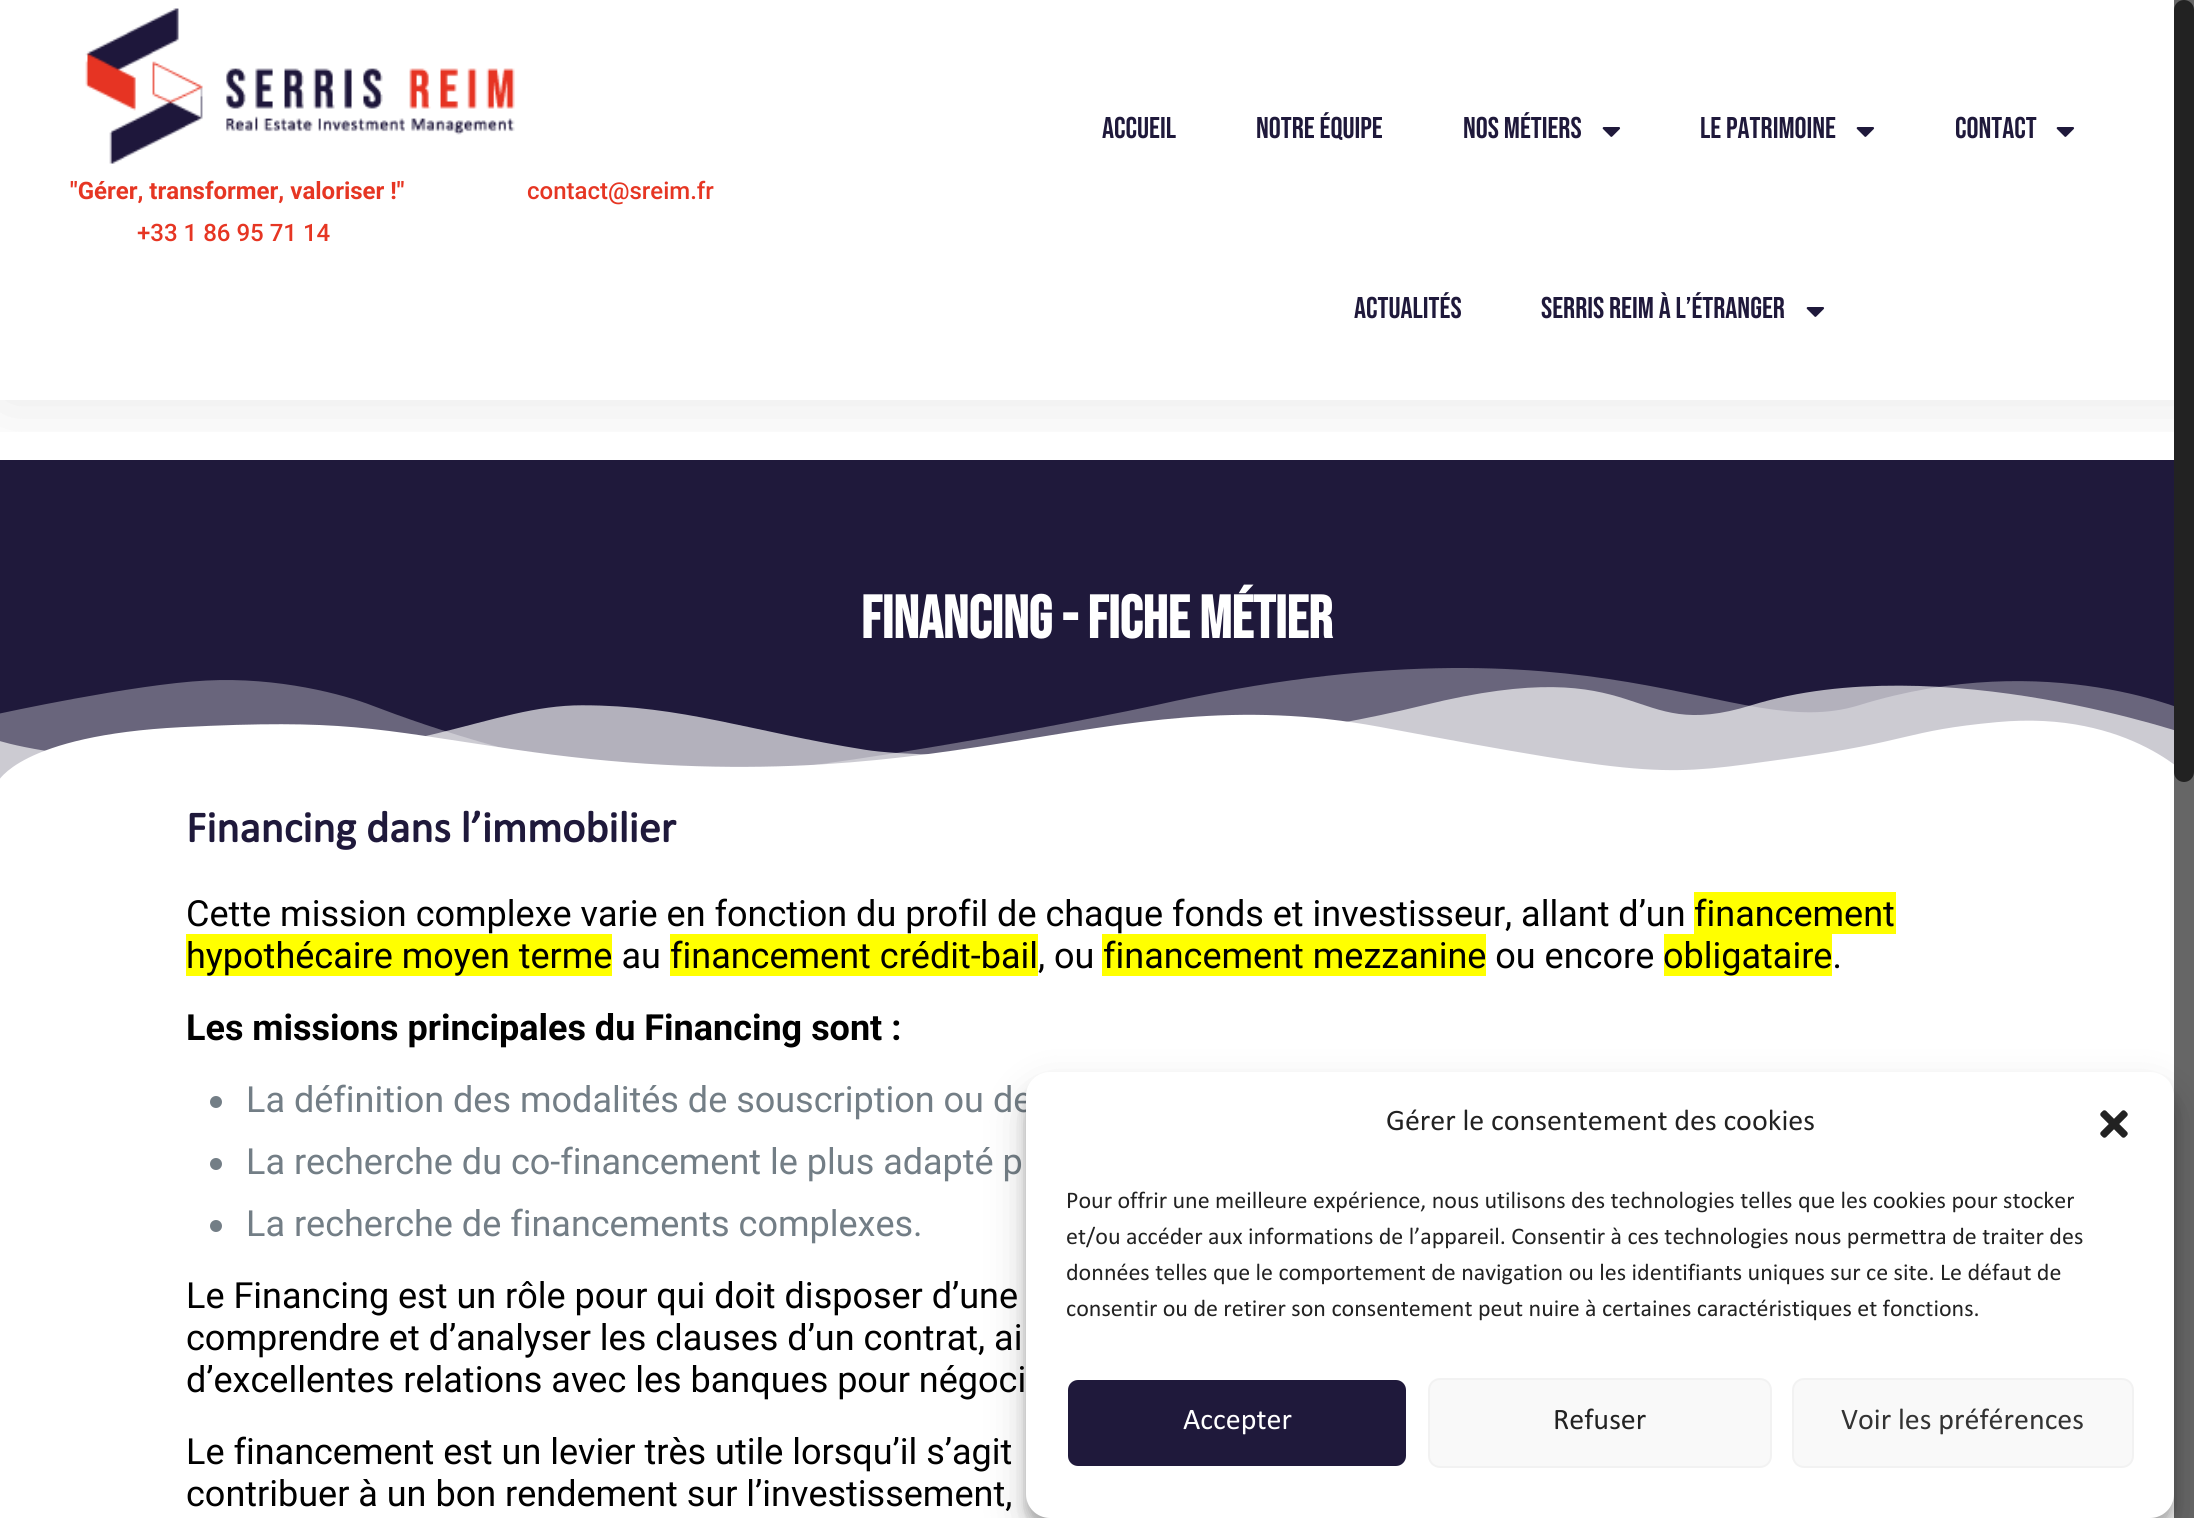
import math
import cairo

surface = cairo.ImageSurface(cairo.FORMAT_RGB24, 2194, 1518)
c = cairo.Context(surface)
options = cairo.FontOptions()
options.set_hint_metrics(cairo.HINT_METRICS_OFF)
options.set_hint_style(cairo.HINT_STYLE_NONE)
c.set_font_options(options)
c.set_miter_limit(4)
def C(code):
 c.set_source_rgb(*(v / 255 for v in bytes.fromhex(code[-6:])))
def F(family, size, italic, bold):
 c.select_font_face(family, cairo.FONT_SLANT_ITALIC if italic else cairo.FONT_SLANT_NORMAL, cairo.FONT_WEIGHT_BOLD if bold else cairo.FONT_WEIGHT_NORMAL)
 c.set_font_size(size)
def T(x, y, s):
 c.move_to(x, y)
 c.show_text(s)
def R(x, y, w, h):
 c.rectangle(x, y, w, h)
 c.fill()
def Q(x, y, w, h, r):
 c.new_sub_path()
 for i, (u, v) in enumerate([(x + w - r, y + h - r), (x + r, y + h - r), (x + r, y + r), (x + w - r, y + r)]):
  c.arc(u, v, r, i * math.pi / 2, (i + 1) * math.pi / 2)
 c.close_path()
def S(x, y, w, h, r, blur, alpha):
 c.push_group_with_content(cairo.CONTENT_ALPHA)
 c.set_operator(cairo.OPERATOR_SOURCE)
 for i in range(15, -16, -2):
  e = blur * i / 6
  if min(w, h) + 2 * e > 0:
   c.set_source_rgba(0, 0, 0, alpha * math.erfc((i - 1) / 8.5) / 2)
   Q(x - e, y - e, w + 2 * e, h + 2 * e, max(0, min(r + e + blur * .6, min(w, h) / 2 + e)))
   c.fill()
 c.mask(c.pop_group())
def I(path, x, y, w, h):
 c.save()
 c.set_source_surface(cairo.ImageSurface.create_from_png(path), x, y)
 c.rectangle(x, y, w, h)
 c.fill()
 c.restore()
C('ffffff')
c.paint()
c.save()
c.rectangle(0,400,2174,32)
c.clip()
C('000000')
S(0,0,2194,400,0,38,.1)
c.restore()
I('1.png',85,8,430,156)
F('Roboto',24,0,1)
C('e63623')
T(70,199,'"Gérer, transformer, valoriser !"')
F('Roboto Medium',24,0,0)
T(527,199,'contact@sreim.fr')
T(137,241,'+33 1 86 95 71 14')
F('Bebas Neue',30,0,0)
C('1f193b')
T(1102,138,'Accueil')
T(1256,138,'Notre équipe')
T(1463,138,'Nos métiers')
I('2.png',1602,127,19,10)
T(1700,138,'Le Patrimoine')
I('2.png',1856,127,19,10)
T(1955,138,'Contact')
I('2.png',2056,127,19,10)
T(1354,318,'Actualités')
T(1541,318,'Serris Reim à l’étranger')
I('2.png',1806,307,19,10)
C('666666')
R(2174,0,20,1518)
C('222222')
Q(2174,0,20,782,10)
c.fill()
C('1f193b')
R(0,460,2174,319)
F('Bebas Neue',60,0,1)
C('ffffff')
T(861,638,'Financing - Fiche métier')
I('3.png',0,668,2174,112)
F('Calibri',44,0,1)
C('1f193b')
T(186,842,'Financing dans l’immobilier')
F('Roboto',36,0,0)
C('000000')
T(186,926,'Cette mission complexe varie en fonction du profil de chaque fonds et investisseur, allant d’un')
C('ffff00')
R(1694,892,202,42)
C('000000')
T(1694,926,'financement')
C('ffff00')
R(186,934,426,42)
C('000000')
T(186,968,'hypothécaire moyen terme au')
C('ffff00')
R(670,934,368,42)
C('000000')
T(670,968,'financement crédit-bail, ou')
C('ffff00')
R(1102,934,384,42)
C('000000')
T(1103,968,'financement mezzanine ou encore')
C('ffff00')
R(1664,934,168,42)
C('000000')
T(1663,968,'obligataire.')
F('Roboto',36,0,1)
T(186,1040,'Les missions principales du Financing sont :')
C('737e86')
c.new_path()
c.arc(216,1102,6,0,2 * math.pi)
c.fill()
F('Roboto',36,0,0)
T(246,1112,'La définition des modalités de souscription ou de')
c.new_path()
c.arc(216,1164,6,0,2 * math.pi)
c.fill()
T(246,1174,'La recherche du co-financement le plus adapté p')
c.new_path()
c.arc(216,1226,6,0,2 * math.pi)
c.fill()
T(246,1236,'La recherche de financements complexes.')
C('000000')
T(186,1308,'Le Financing est un rôle pour qui doit disposer d’une')
T(186,1350,'comprendre et d’analyser les clauses d’un contrat, ai')
T(186,1392,'d’excellentes relations avec les banques pour négoci')
T(186,1464,'Le financement est un levier très utile lorsqu’il s’agit')
T(186,1506,'contribuer à un bon rendement sur l’investissement,')
C('000000')
S(1026,1084,1148,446,24,6,.23)
S(1026,1092,1148,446,24,20,.19)
C('ffffff')
Q(1026,1072,1148,446,24)
c.fill()
F('Calibri',30,0,0)
C('222222')
T(1386,1130,'Gérer le consentement des cookies')
I('4.png',2100,1110,28,28)
F('Calibri',24,0,0)
T(1066,1208,'Pour offrir une meilleure expérience, nous utilisons des technologies telles que les cookies pour stocker')
T(1066,1244,'et/ou accéder aux informations de l’appareil. Consentir à ces technologies nous permettra de traiter des')
T(1066,1280,'données telles que le comportement de navigation ou les identifiants uniques sur ce site. Le défaut de')
T(1066,1316,'consentir ou de retirer son consentement peut nuire à certaines caractéristiques et fonctions.')
C('1f193b')
Q(1067,1379,340,88,11)
c.fill_preserve()
C('ffffff')
c.stroke()
F('Calibri',30,0,0)
T(1183,1429,'Accepter')
C('f9f9f9')
Q(1429,1379,342,88,11)
c.fill_preserve()
C('f2f2f2')
c.stroke()
C('222222')
T(1553,1429,'Refuser')
C('f9f9f9')
Q(1793,1379,340,88,11)
c.fill_preserve()
C('f2f2f2')
c.stroke()
C('333333')
T(1841,1429,'Voir les préférences')
surface.write_to_png('o.png')
